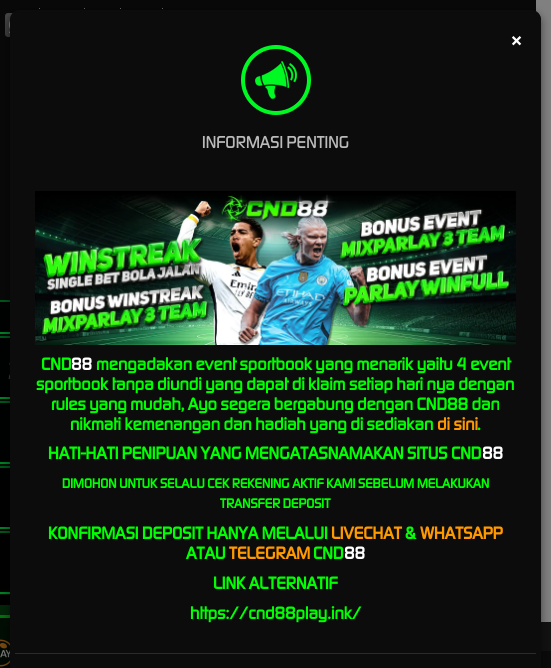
import math
import cairo

surface = cairo.ImageSurface(cairo.FORMAT_RGB24, 551, 668)
c = cairo.Context(surface)
options = cairo.FontOptions()
options.set_hint_metrics(cairo.HINT_METRICS_OFF)
options.set_hint_style(cairo.HINT_STYLE_NONE)
c.set_font_options(options)
c.set_miter_limit(4)
def C(code):
 c.set_source_rgb(*(v / 255 for v in bytes.fromhex(code[-6:])))
def F(family, size, italic, bold):
 c.select_font_face(family, cairo.FONT_SLANT_ITALIC if italic else cairo.FONT_SLANT_NORMAL, cairo.FONT_WEIGHT_BOLD if bold else cairo.FONT_WEIGHT_NORMAL)
 c.set_font_size(size)
def T(x, y, s):
 c.move_to(x, y)
 c.show_text(s)
def R(x, y, w, h):
 c.rectangle(x, y, w, h)
 c.fill()
def Q(x, y, w, h, r):
 c.new_sub_path()
 for i, (u, v) in enumerate([(x + w - r, y + h - r), (x + r, y + h - r), (x + r, y + r), (x + w - r, y + r)]):
  c.arc(u, v, r, i * math.pi / 2, (i + 1) * math.pi / 2)
 c.close_path()
def S(x, y, w, h, r, blur, alpha):
 c.push_group_with_content(cairo.CONTENT_ALPHA)
 c.set_operator(cairo.OPERATOR_SOURCE)
 for i in range(15, -16, -2):
  e = blur * i / 6
  if min(w, h) + 2 * e > 0:
   c.set_source_rgba(0, 0, 0, alpha * math.erfc((i - 1) / 8.5) / 2)
   Q(x - e, y - e, w + 2 * e, h + 2 * e, max(0, min(r + e + blur * .6, min(w, h) / 2 + e)))
   c.fill()
 c.mask(c.pop_group())
def I(path, x, y, w, h):
 c.save()
 c.set_source_surface(cairo.ImageSurface.create_from_png(path), x, y)
 c.rectangle(x, y, w, h)
 c.fill()
 c.restore()
C('808080')
c.paint()
C('080808')
R(0,0,536,50)
I('1.png',5,13,8,24)
c.new_path()
c.move_to(39.5,8)
c.line_to(39.5,42)
c.move_to(84.5,8)
c.line_to(84.5,42)
C('666666')
c.set_line_width(1)
c.set_dash([1,1])
c.stroke()
c.new_path()
c.move_to(162.5,8)
c.line_to(162.5,42)
c.move_to(120.5,8)
c.line_to(120.5,42)
c.stroke()
C('080808')
R(0,50,10,254)
C('0d0d0d')
R(0,304,10,4)
I('5.png',0,308,10,171)
c.set_source_rgba(0,0,0,0.86)
R(0,302,10,30)
C('00551a')
c.new_path()
c.move_to(-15,300)
c.line_to(-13,302)
c.line_to(51,302)
c.curve_to(53,302,55,303,56,304)
c.line_to(58,303)
c.curve_to(56,301,54,300,51,300)
c.close_path()
c.fill()
C('008026')
c.new_path()
c.move_to(61,334)
c.line_to(59,332)
c.line_to(-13,332)
c.line_to(-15,334)
c.close_path()
c.fill()
c.set_source_rgba(0,0,0,0.86)
R(0,338,10,59)
C('00551a')
c.new_path()
c.move_to(-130,336)
c.line_to(-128,338)
c.line_to(44,338)
c.curve_to(48,338,51,340,53,342)
c.line_to(54,340)
c.curve_to(52,338,48,336,44,336)
c.close_path()
c.fill()
C('008026')
c.new_path()
c.move_to(44,399)
c.curve_to(48,399,52,397,54,394)
c.line_to(53,393)
c.curve_to(51,396,48,397,44,397)
c.line_to(-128,397)
c.line_to(-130,399)
c.close_path()
c.fill()
I('4.png',8,360,2,19)
c.set_source_rgba(0,0,0,0.86)
R(0,403,10,59)
C('00551a')
c.new_path()
c.move_to(-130,401)
c.line_to(-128,403)
c.line_to(44,403)
c.curve_to(48,403,51,404,53,407)
c.line_to(54,406)
c.curve_to(52,403,48,401,44,401)
c.close_path()
c.fill()
C('008026')
c.new_path()
c.move_to(44,464)
c.curve_to(48,464,52,462,54,460)
c.line_to(53,458)
c.curve_to(51,460,48,462,44,462)
c.line_to(-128,462)
c.line_to(-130,464)
c.close_path()
c.fill()
C('040404')
R(0,479,10,1)
C('050505')
R(0,480,10,105)
c.set_source_rgba(0,0,0,0.86)
R(0,468,10,59)
C('00551a')
c.new_path()
c.move_to(-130,466)
c.line_to(-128,468)
c.line_to(44,468)
c.curve_to(48,468,51,470,53,472)
c.line_to(54,470)
c.curve_to(52,468,48,466,44,466)
c.close_path()
c.fill()
C('008026')
c.new_path()
c.move_to(44,529)
c.curve_to(48,529,52,527,54,524)
c.line_to(53,523)
c.curve_to(51,526,48,527,44,527)
c.line_to(-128,527)
c.line_to(-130,529)
c.close_path()
c.fill()
gradient = cairo.LinearGradient(155,585,155,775)
gradient.add_color_stop_rgba(0,0.024,0.055,0.012,1)
gradient.add_color_stop_rgba(.5,0,0.447,0.051,1)
gradient.add_color_stop_rgba(1,0.024,0.055,0.004,1)
c.set_source(gradient)
R(0,585,10,10)
c.set_source_rgba(0,0,0,0.86)
R(0,533,10,59)
C('00551a')
c.new_path()
c.move_to(-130,531)
c.line_to(-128,533)
c.line_to(44,533)
c.curve_to(48,533,51,534,53,537)
c.line_to(54,536)
c.curve_to(52,533,48,531,44,531)
c.close_path()
c.fill()
C('008026')
c.new_path()
c.move_to(44,594)
c.curve_to(48,594,52,592,54,590)
c.line_to(53,588)
c.curve_to(51,590,48,592,44,592)
c.line_to(-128,592)
c.line_to(-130,594)
c.close_path()
c.fill()
C('000000')
R(0,595,10,10)
gradient = cairo.LinearGradient(155,605,155,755)
gradient.add_color_stop_rgba(0,0.012,0.145,0.027,1)
gradient.add_color_stop_rgba(1,0,0,0,1)
c.set_source(gradient)
R(0,605,10,63)
c.set_source_rgba(0,0,0,0.6)
R(0,618,10,50)
c.rectangle(-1.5,616.5,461,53)
C('02720c')
c.set_line_width(3)
c.set_dash([])
c.stroke()
I('6.png',0,639,10,28)
C('0a0a0a')
R(541,651,10,17)
C('111111')
R(541,622,10,29)
C('000000')
S(10,13,531,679,10,4.5,.5)
C('0c0c0c')
c.new_path()
c.move_to(20,10)
c.line_to(531,10)
c.curve_to(536.5,10,541,14.5,541,20)
c.line_to(541,668)
c.line_to(10,668)
c.line_to(10,20)
c.curve_to(10,14.5,14.5,10,20,10)
c.close_path()
c.fill()
Q(12.5,12.5,526,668,7.5)
c.set_line_width(5)
c.stroke()
F('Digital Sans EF',21,0,1)
C('ffffff')
T(511,48,'×')
I('2.png',241,45,70,70)
F('Digital Sans EF Medium',18,0,0)
C('bbbbbb')
T(202,148,'INFORMASI PENTING')
I('3.png',35,191,481,154)
F('Digital Sans EF',18,0,1)
C('00ff00')
T(41,370,'CND')
C('ffffff')
T(71,370,'88')
C('00ff00')
T(96,370,'mengadakan event sportbook yang menarik yaitu 4 event')
T(36,390,'sportbook tanpa diundi yang dapat di klaim setiap hari nya dengan')
T(51,410,'rules yang mudah, Ayo segera bergabung dengan CND88 dan')
T(70,430,'nikmati kemenangan dan hadiah yang di sediakan')
C('ff9900')
T(437,430,'di sini')
C('00ff00')
T(477,430,'.')
T(48,459,'HATI-HATI PENIPUAN YANG MENGATASNAMAKAN SITUS CND')
C('ffffff')
T(482,459,'88')
F('Digital Sans EF',14,0,1)
C('00ff00')
T(62,488,'DIMOHON UNTUK SELALU CEK REKENING AKTIF KAMI SEBELUM MELAKUKAN')
T(220,508,'TRANSFER DEPOSIT')
F('Digital Sans EF',18,0,1)
T(48,539,'KONFIRMASI DEPOSIT HANYA MELALUI')
C('ff9900')
T(331,539,'LIVECHAT')
C('00ff00')
T(405,539,'&')
C('ff9900')
T(420,539,'WHATSAPP')
C('00ff00')
T(186,559,'ATAU')
C('ff9900')
T(229,559,'TELEGRAM')
C('00ff00')
T(313,559,'CND')
C('ffffff')
T(344,559,'88')
C('00ff00')
T(213,589,'LINK ALTERNATIF')
T(190,619,'https://cnd88play.ink/')
C('2b2b2b')
R(15,653,521,1)
surface.write_to_png('o.png')
